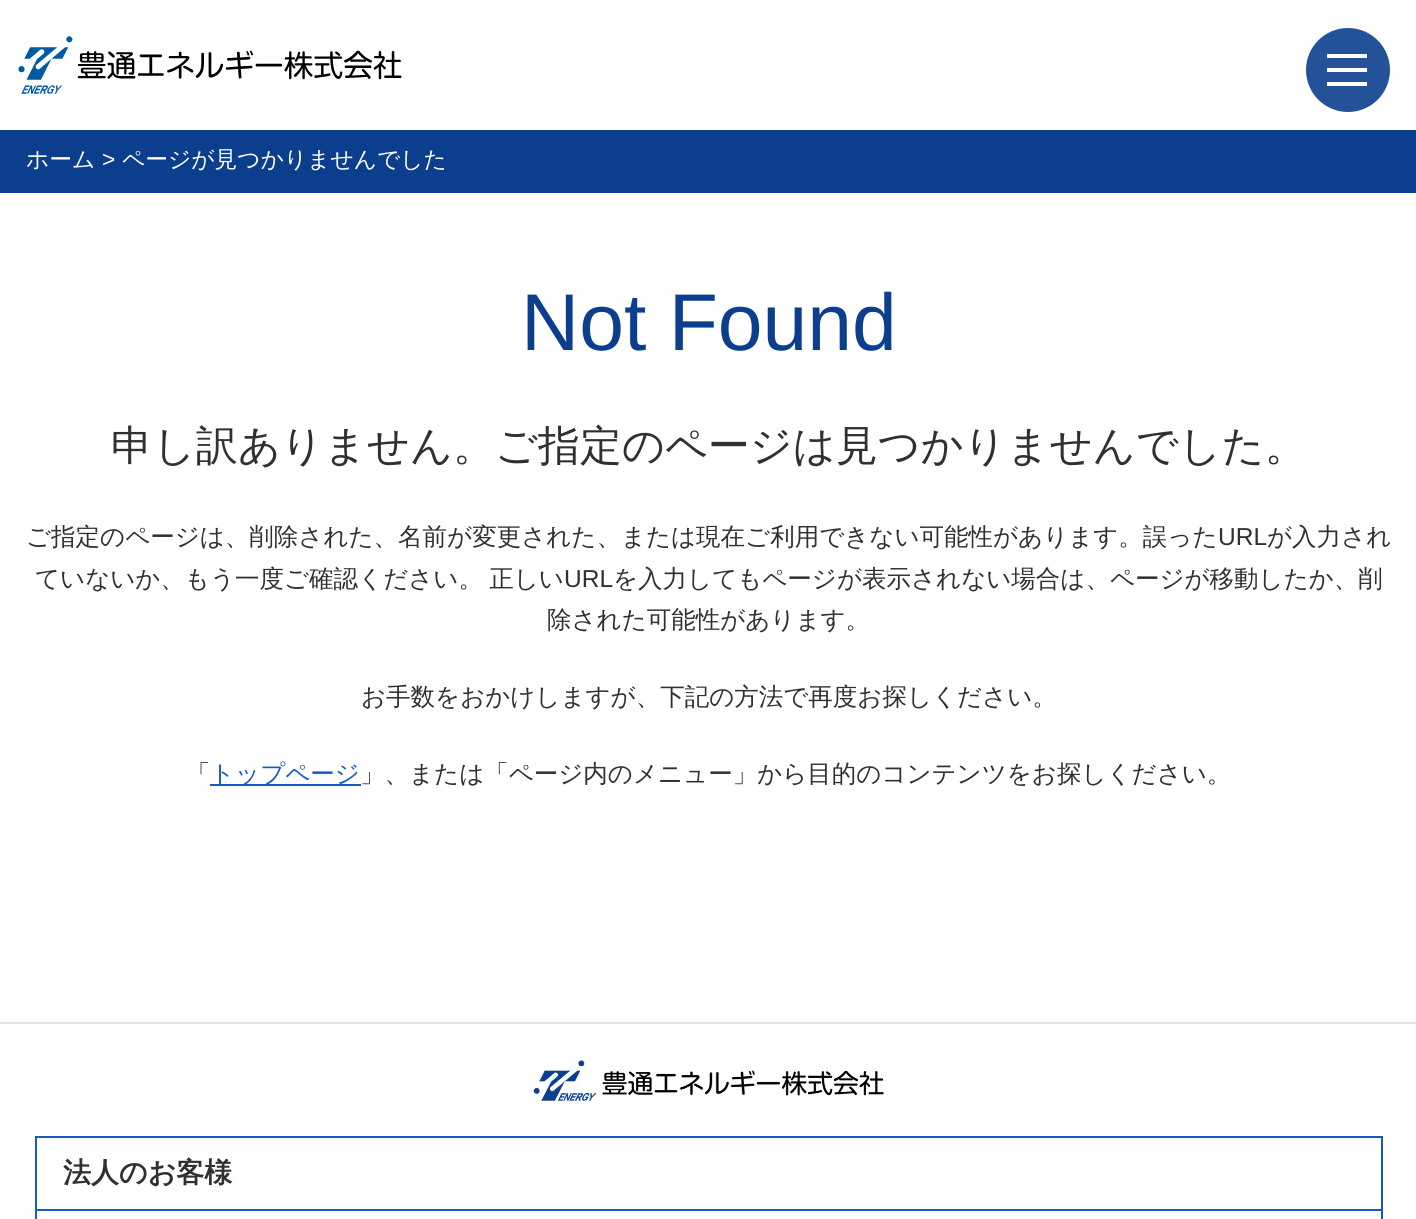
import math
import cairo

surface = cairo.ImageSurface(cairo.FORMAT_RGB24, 1416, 1219)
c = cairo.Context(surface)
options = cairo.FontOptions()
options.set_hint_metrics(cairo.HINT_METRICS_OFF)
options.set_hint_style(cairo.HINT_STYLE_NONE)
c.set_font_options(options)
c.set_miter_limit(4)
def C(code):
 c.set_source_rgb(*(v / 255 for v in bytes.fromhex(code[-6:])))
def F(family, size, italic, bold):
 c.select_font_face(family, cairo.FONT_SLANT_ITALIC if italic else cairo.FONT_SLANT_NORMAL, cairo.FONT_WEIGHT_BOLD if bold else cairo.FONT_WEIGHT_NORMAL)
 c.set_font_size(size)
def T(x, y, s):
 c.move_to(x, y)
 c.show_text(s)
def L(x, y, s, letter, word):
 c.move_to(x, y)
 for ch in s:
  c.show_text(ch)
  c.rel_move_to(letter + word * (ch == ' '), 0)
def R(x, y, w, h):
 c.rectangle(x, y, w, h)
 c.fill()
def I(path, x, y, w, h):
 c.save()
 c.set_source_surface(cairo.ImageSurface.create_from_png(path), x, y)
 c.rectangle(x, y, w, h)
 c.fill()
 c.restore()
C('ffffff')
c.paint()
I('1.png',18,36,384,58)
C('235298')
c.arc(1348,70,42,0,2 * math.pi)
c.fill()
C('ffffff')
R(1327,54,40,4)
R(1327,68,40,4)
R(1327,82,40,4)
C('0b3f8d')
R(0,130,1416,63)
F('WenQuanYi Zen Hei Medium',22.75,0,0)
C('ffffff')
T(26,167,'ホーム')
F('Liberation Sans',22.75,0,0)
T(102,167,'>')
F('WenQuanYi Zen Hei Medium',22.75,0,0)
T(122,167,'ページが見つかりませんでした')
F('Liberation Sans',80.5,0,0)
C('0b3f8d')
T(521,350,'Not Found')
F('WenQuanYi Zen Hei Medium',42,0,0)
C('303030')
T(111,460,'申し訳ありません。ご指定のページは見つかりませんでした。')
F('WenQuanYi Zen Hei Medium',24.5,0,0)
T(26,545,'ご指定のページは、削除された、名前が変更された、または現在ご利用できない可能性があります。誤った')
F('Liberation Sans',24.5,0,0)
T(1218,545,'URL')
F('WenQuanYi Zen Hei Medium',24.5,0,0)
T(1267,545,'が入力され')
L(35,587,'ていないか、もう一度ご確認ください。 正しい',0,-1)
F('Liberation Sans',24.5,0,0)
T(564,587,'URL')
F('WenQuanYi Zen Hei Medium',24.5,0,0)
T(613,587,'を入力してもページが表示されない場合は、ページが移動したか、削')
T(547,628,'除された可能性があります。')
T(361,705,'お手数をおかけしますが、下記の方法で再度お探しください。')
T(186,782,'「')
C('155dc5')
R(210,784,151,2)
T(210,782,'トップページ')
C('303030')
T(360,782,'」、または「ページ内のメニュー」から目的のコンテンツをお探しください。')
C('dfe4e5')
R(0,1022,1416,2)
I('2.png',533,1060,351,41)
C('155cc4')
R(35,1136,1348,2)
R(1381,1136,2,73)
R(35,1136,2,73)
F('WenQuanYi Zen Hei',28,0,1)
C('303030')
T(63,1182,'法人のお客様')
C('155cc4')
R(35,1209,1348,2)
R(1381,1209,2,10)
R(35,1209,2,10)
surface.write_to_png('o.png')
